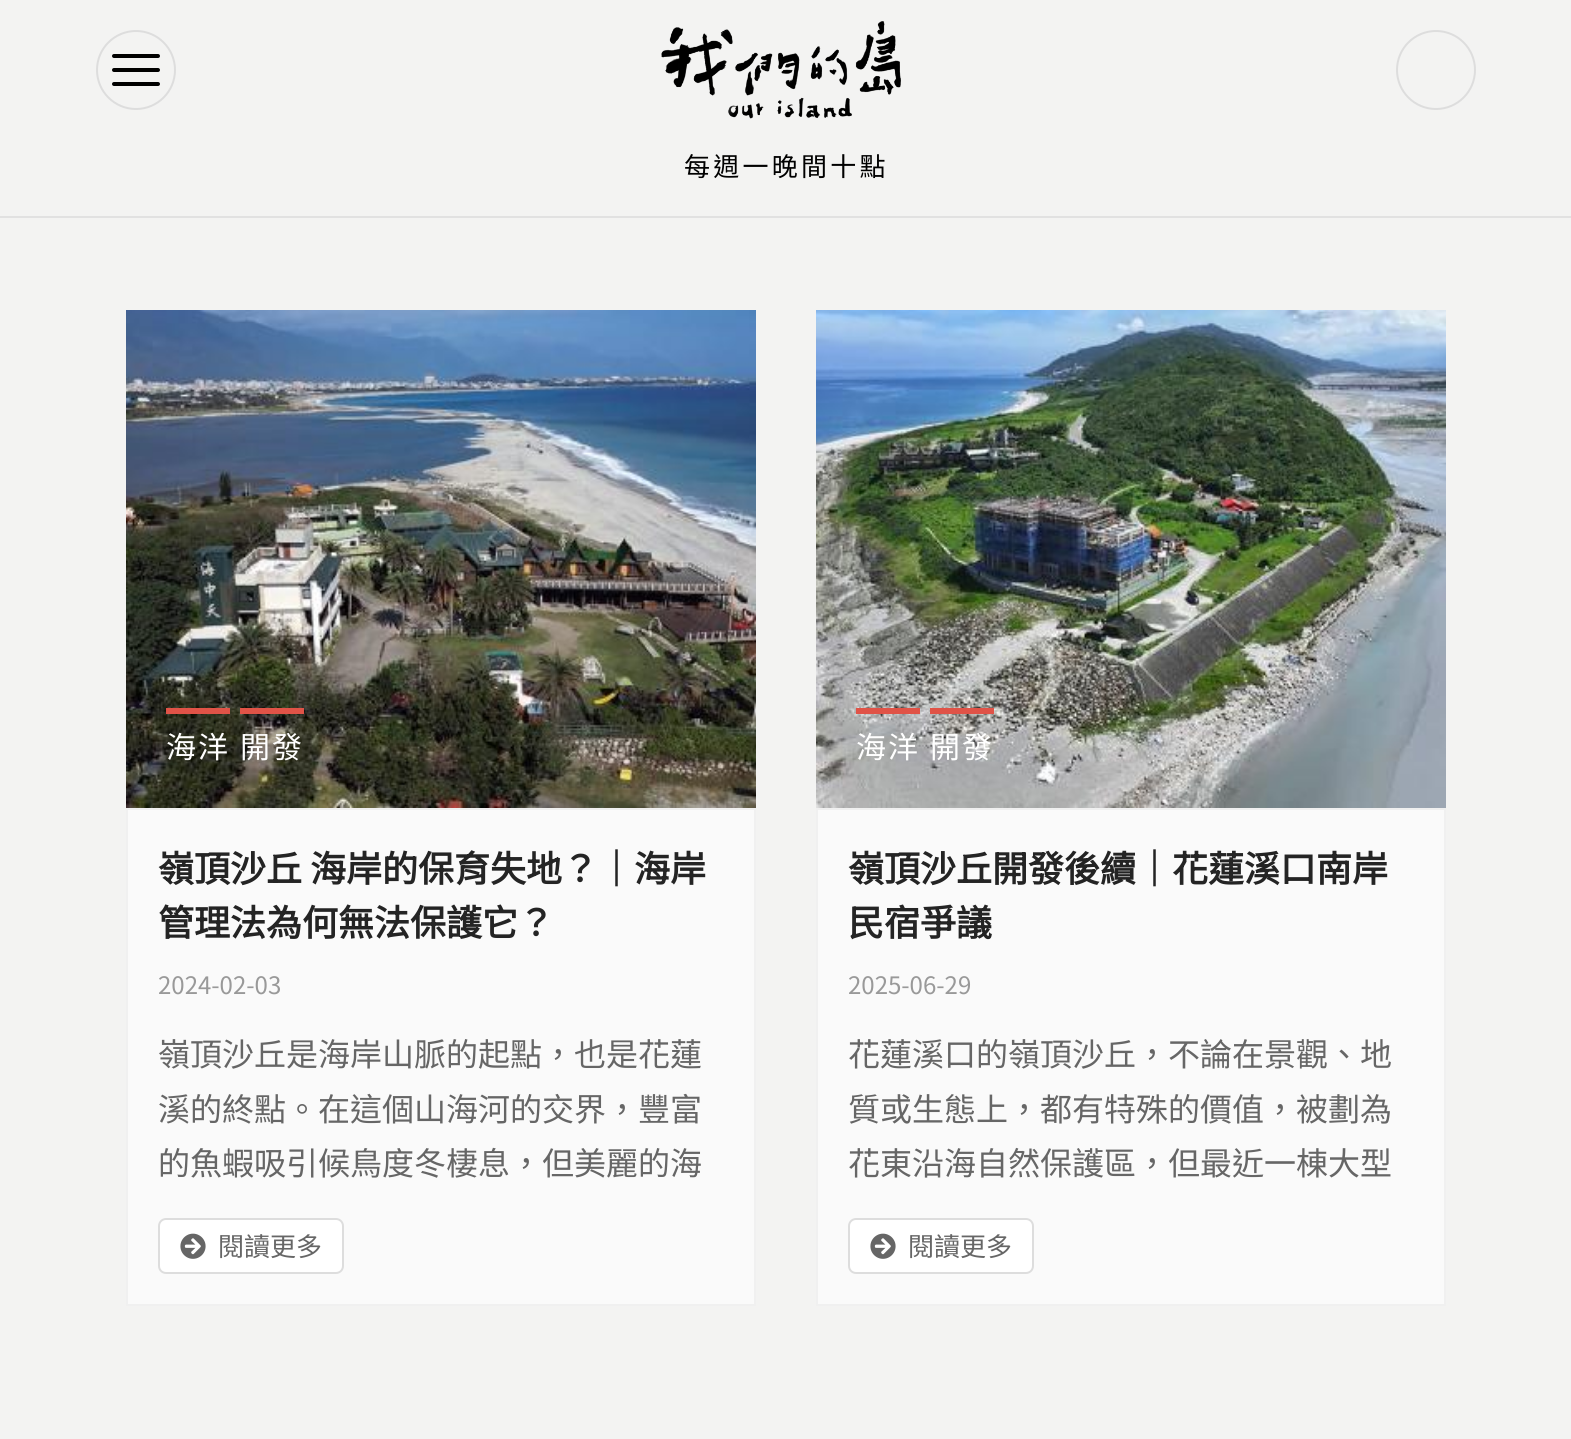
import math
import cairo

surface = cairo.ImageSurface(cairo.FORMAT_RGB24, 1571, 1439)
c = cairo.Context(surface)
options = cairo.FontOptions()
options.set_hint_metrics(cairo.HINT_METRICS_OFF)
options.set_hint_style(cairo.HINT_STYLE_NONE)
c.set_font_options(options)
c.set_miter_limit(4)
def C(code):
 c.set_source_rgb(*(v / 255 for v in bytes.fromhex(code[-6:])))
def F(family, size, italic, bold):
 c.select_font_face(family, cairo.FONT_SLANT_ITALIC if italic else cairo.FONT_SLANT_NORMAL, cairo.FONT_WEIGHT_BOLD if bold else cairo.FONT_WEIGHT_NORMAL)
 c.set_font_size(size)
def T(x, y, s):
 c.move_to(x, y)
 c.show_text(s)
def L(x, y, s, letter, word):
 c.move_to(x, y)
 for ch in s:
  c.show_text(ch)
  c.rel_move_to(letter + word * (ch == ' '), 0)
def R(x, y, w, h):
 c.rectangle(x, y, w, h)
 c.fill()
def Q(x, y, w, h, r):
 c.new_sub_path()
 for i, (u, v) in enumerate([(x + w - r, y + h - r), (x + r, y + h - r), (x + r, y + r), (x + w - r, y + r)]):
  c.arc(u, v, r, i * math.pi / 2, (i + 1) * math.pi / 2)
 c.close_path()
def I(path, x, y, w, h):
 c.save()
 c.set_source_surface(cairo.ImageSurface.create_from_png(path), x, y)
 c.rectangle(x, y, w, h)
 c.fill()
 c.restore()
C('f3f3f2')
c.paint()
C('e1e1e1')
R(0,216,1571,2)
c.arc(136,70,39,0,2 * math.pi)
C('dddddd')
c.stroke()
C('000000')
Q(112,82,48,4,2)
c.fill()
Q(112,54,48,4,2)
c.fill()
Q(112,68,48,4,2)
c.fill()
I('1.png',661,21,240,98)
c.arc(1436,70,39,0,2 * math.pi)
C('dddddd')
c.stroke()
F('Noto Sans TC Thin',26,0,0)
C('000000')
L(684,176,'每週一晚間十點',3.25,0)
I('2.png',126,310,630,498)
C('e05347')
R(166,708,64,6)
F('Noto Sans TC Thin',30,0,0)
C('ffffff')
L(166,758,'海洋',2,0)
C('e05347')
R(240,708,64,6)
C('ffffff')
L(240,758,'開發',2,0)
C('fafafa')
c.rectangle(127,809,628,496)
c.fill_preserve()
C('f0f0f0')
c.stroke()
F('Noto Sans TC',36,0,1)
C('242424')
T(158,882,'嶺頂沙丘 海岸的保育失地？｜海岸')
T(158,936,'管理法為何無法保護它？')
F('Noto Sans TC Thin',24,0,0)
C('999999')
T(158,994,'2024-02-03')
F('Noto Sans TC Thin',32,0,0)
C('666666')
T(158,1066,'嶺頂沙丘是海岸山脈的起點，也是花蓮')
T(158,1121,'溪的終點。在這個山海河的交界，豐富')
T(158,1175,'的魚蝦吸引候鳥度冬棲息，但美麗的海')
C('ffffff')
Q(159,1219,184,54,7)
c.fill_preserve()
C('dddddd')
c.stroke()
I('3.png',180,1233,26,26)
F('Noto Sans TC Thin',26,0,0)
C('666666')
T(218,1256,'閱讀更多')
I('4.png',816,310,630,498)
C('e05347')
R(856,708,64,6)
F('Noto Sans TC Thin',30,0,0)
C('ffffff')
L(856,758,'海洋',2,0)
C('e05347')
R(930,708,64,6)
C('ffffff')
L(930,758,'開發',2,0)
C('fafafa')
c.rectangle(817,809,628,496)
c.fill_preserve()
C('f0f0f0')
c.stroke()
F('Noto Sans TC',36,0,1)
C('242424')
T(848,882,'嶺頂沙丘開發後續｜花蓮溪口南岸')
T(848,936,'民宿爭議')
F('Noto Sans TC Thin',24,0,0)
C('999999')
T(848,994,'2025-06-29')
F('Noto Sans TC Thin',32,0,0)
C('666666')
T(848,1066,'花蓮溪口的嶺頂沙丘，不論在景觀、地')
T(848,1121,'質或生態上，都有特殊的價值，被劃為')
T(848,1175,'花東沿海自然保護區，但最近一棟大型')
C('ffffff')
Q(849,1219,184,54,7)
c.fill_preserve()
C('dddddd')
c.stroke()
I('3.png',870,1233,26,26)
F('Noto Sans TC Thin',26,0,0)
C('666666')
T(908,1256,'閱讀更多')
surface.write_to_png('o.png')
